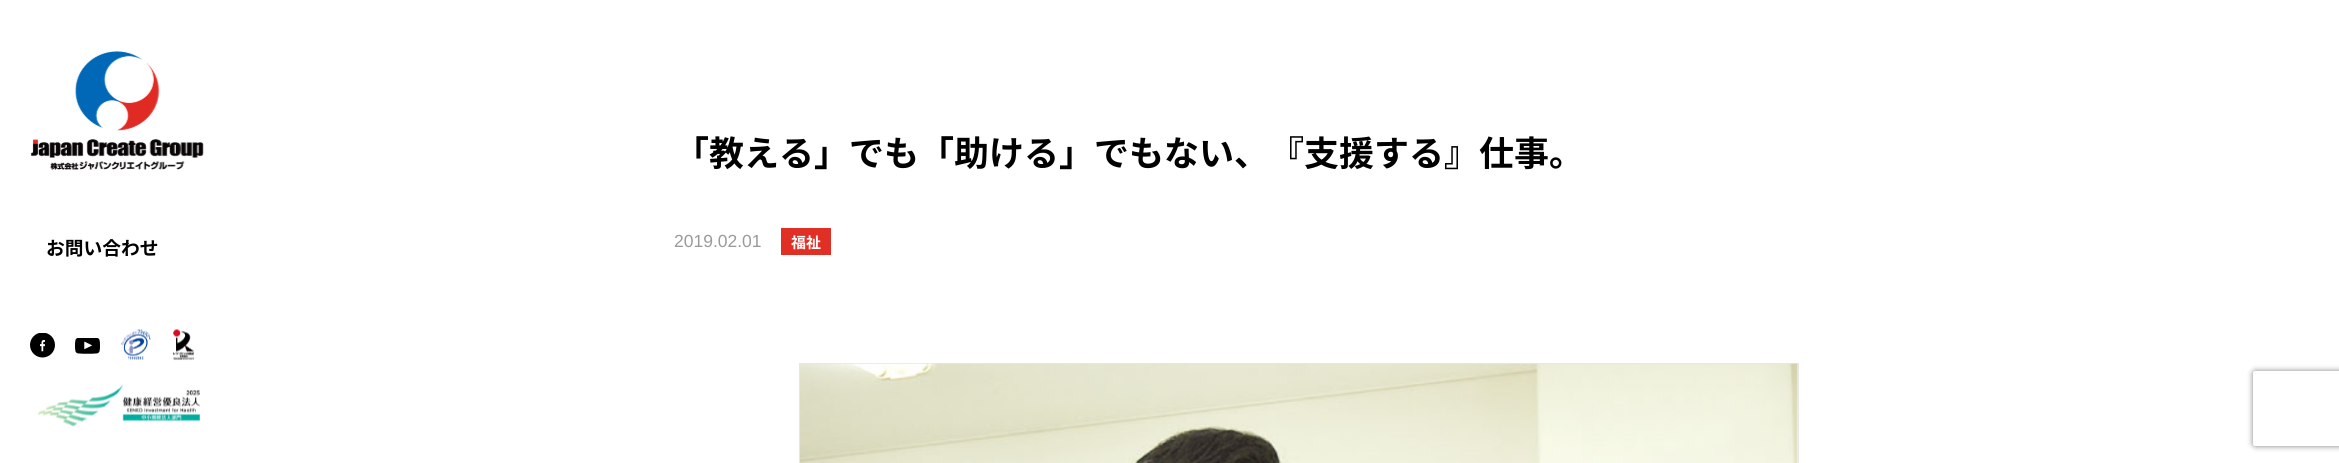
import math
import cairo

surface = cairo.ImageSurface(cairo.FORMAT_RGB24, 2339, 463)
c = cairo.Context(surface)
options = cairo.FontOptions()
options.set_hint_metrics(cairo.HINT_METRICS_OFF)
options.set_hint_style(cairo.HINT_STYLE_NONE)
c.set_font_options(options)
c.set_miter_limit(4)
def C(code):
 c.set_source_rgb(*(v / 255 for v in bytes.fromhex(code[-6:])))
def F(family, size, italic, bold):
 c.select_font_face(family, cairo.FONT_SLANT_ITALIC if italic else cairo.FONT_SLANT_NORMAL, cairo.FONT_WEIGHT_BOLD if bold else cairo.FONT_WEIGHT_NORMAL)
 c.set_font_size(size)
def T(x, y, s):
 c.move_to(x, y)
 c.show_text(s)
def R(x, y, w, h):
 c.rectangle(x, y, w, h)
 c.fill()
def Q(x, y, w, h, r):
 c.new_sub_path()
 for i, (u, v) in enumerate([(x + w - r, y + h - r), (x + r, y + h - r), (x + r, y + r), (x + w - r, y + r)]):
  c.arc(u, v, r, i * math.pi / 2, (i + 1) * math.pi / 2)
 c.close_path()
def S(x, y, w, h, r, blur, alpha):
 c.push_group_with_content(cairo.CONTENT_ALPHA)
 c.set_operator(cairo.OPERATOR_SOURCE)
 for i in range(15, -16, -2):
  e = blur * i / 6
  if min(w, h) + 2 * e > 0:
   c.set_source_rgba(0, 0, 0, alpha * math.erfc((i - 1) / 8.5) / 2)
   Q(x - e, y - e, w + 2 * e, h + 2 * e, max(0, min(r + e + blur * .6, min(w, h) / 2 + e)))
   c.fill()
 c.mask(c.pop_group())
def I(path, x, y, w, h):
 c.save()
 c.set_source_surface(cairo.ImageSurface.create_from_png(path), x, y)
 c.rectangle(x, y, w, h)
 c.fill()
 c.restore()
C('ffffff')
c.paint()
I('1.png',31,51,173,119)
F('Noto Sans JP',18.75,0,1)
C('000000')
T(46,255,'お問い合わせ')
I('2.png',30,333,25,25)
I('3.png',75,338,25,16)
I('4.png',120,329,31,31)
I('5.png',173,329,22,32)
I('6.png',38,384,162,43)
F('Noto Sans JP',35,0,1)
T(674,166,'「教える」でも「助ける」でもない、『支援する』仕事。')
F('Liberation Sans',17.5,0,0)
C('9a9a9a')
T(674,247,'2019.02.01')
C('e03025')
R(781,228,50,27)
F('Noto Sans JP',15,0,1)
C('ffffff')
T(791,248,'福祉')
c.rectangle(799.5,363.5,999,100)
C('e6e6e6')
c.set_line_width(1)
c.stroke()
I('7.png',800,363,998,100)
c.save()
c.set_fill_rule(cairo.FILL_RULE_EVEN_ODD)
c.new_path()
c.move_to(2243,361)
c.line_to(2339,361)
c.line_to(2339,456)
c.line_to(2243,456)
c.close_path()
c.move_to(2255.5,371)
c.line_to(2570.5,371)
c.curve_to(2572,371,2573,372,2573,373.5)
c.line_to(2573,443.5)
c.curve_to(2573,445,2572,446,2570.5,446)
c.line_to(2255.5,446)
c.curve_to(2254,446,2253,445,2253,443.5)
c.line_to(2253,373.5)
c.curve_to(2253,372,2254,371,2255.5,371)
c.close_path()
c.clip()
C('808080')
S(2253,371,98,75,2.5,3,1)
c.restore()
surface.write_to_png('o.png')
